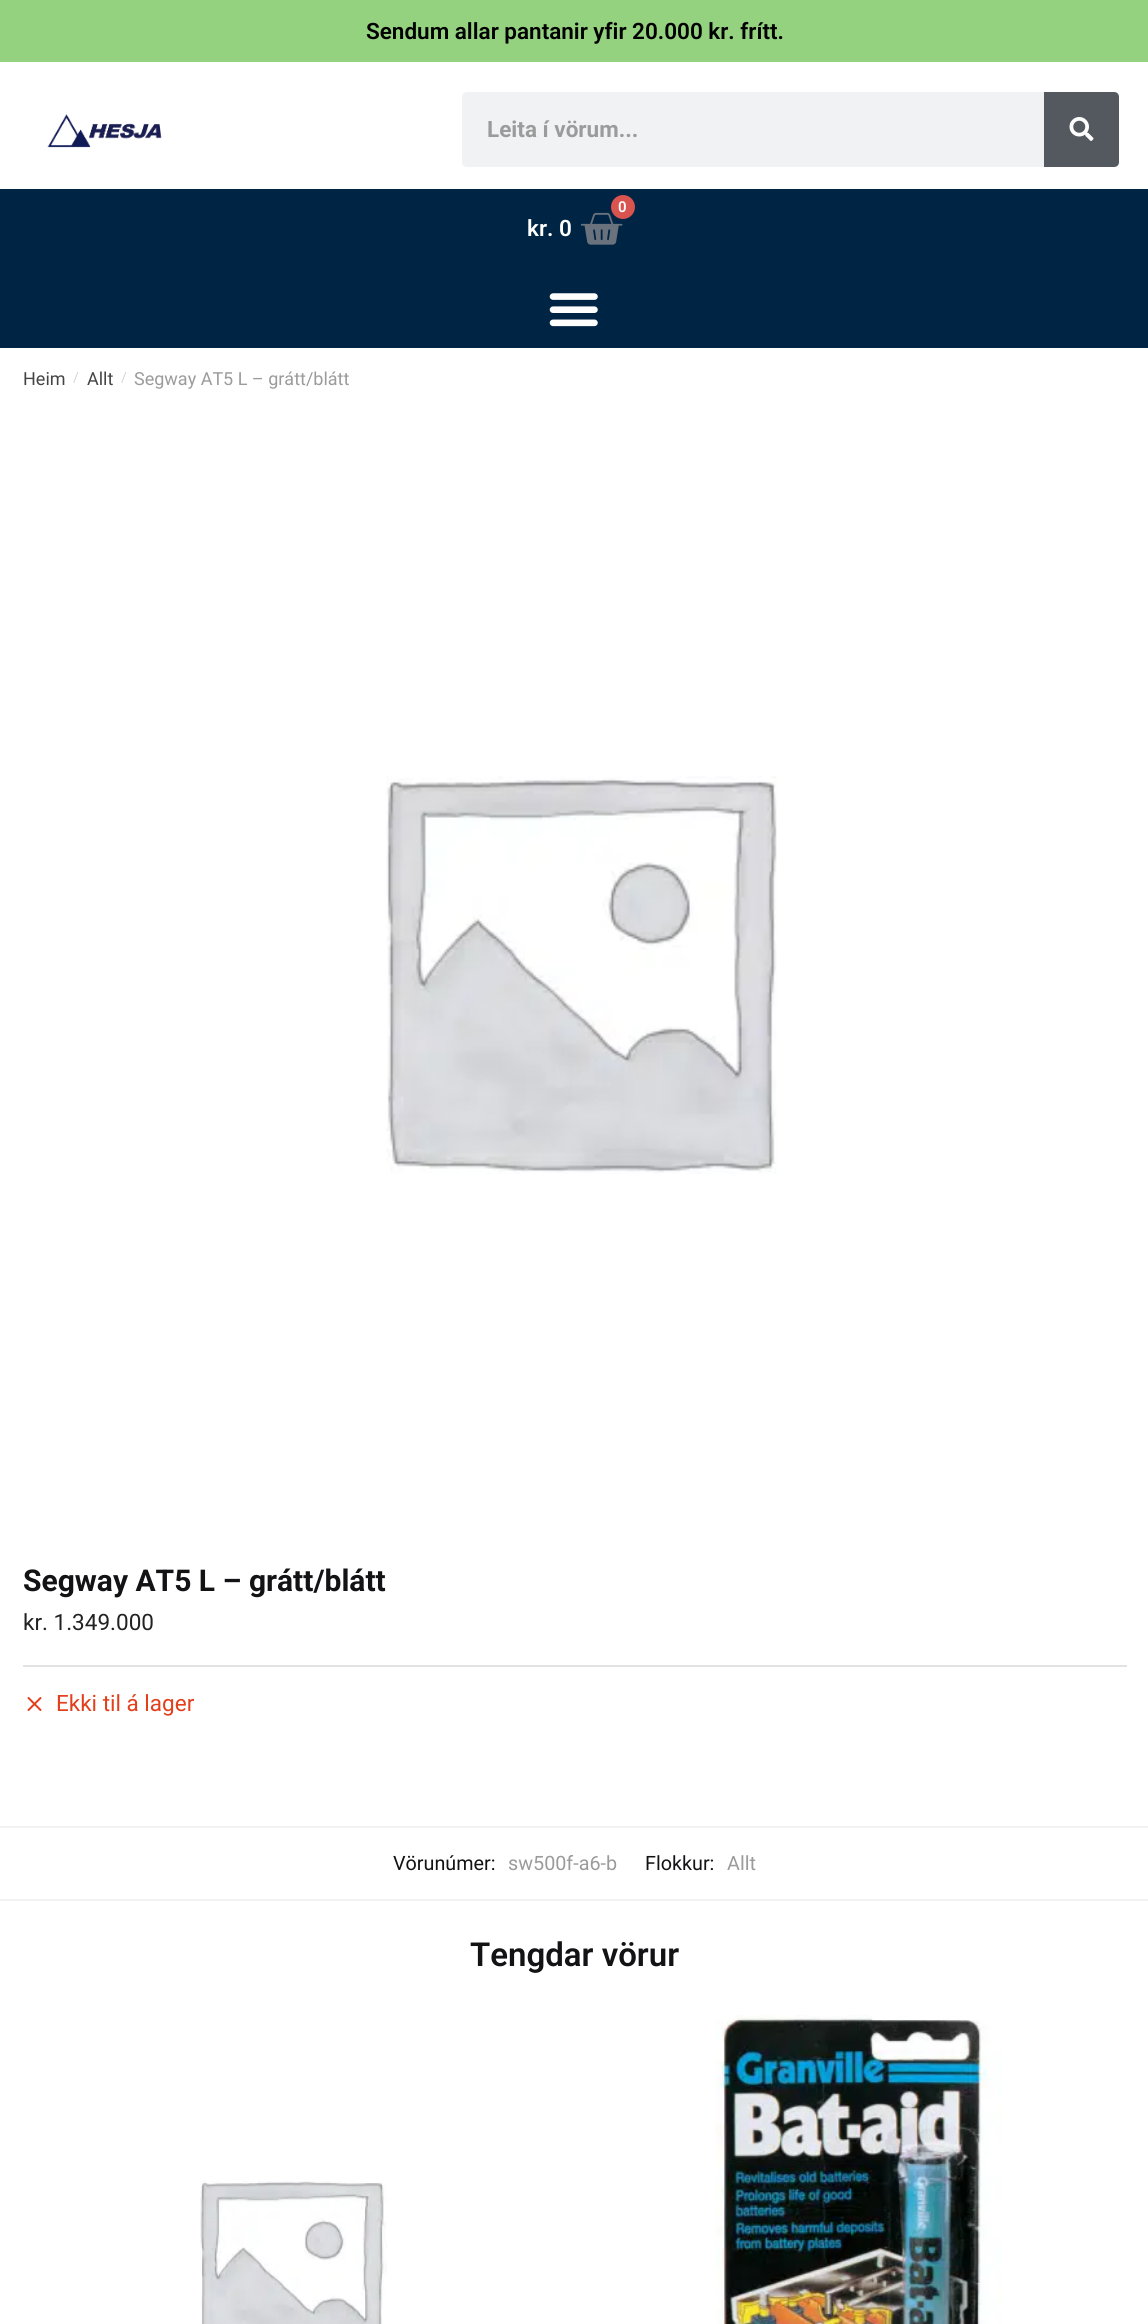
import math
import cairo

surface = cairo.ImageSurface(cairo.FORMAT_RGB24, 1148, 2324)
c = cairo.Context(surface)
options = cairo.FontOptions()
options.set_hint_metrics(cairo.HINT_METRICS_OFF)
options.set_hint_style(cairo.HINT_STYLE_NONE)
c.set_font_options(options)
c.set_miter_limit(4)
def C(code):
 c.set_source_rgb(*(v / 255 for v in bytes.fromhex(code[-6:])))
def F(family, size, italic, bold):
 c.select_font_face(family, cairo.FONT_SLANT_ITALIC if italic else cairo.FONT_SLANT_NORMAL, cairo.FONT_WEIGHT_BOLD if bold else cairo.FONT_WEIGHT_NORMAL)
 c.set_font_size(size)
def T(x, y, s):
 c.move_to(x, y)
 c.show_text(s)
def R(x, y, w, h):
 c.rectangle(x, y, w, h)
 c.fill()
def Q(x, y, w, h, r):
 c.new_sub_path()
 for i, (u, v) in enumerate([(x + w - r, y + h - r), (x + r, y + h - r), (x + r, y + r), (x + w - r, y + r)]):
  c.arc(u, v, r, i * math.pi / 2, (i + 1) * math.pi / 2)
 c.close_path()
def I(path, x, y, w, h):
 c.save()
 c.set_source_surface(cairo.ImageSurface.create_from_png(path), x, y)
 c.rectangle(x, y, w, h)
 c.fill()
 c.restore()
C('ffffff')
c.paint()
C('94d280')
R(0,0,1148,62)
F('Roboto SemiBold',22.5,0,0)
C('000000')
T(366,39,'Sendum allar pantanir yfir 20.000 kr. frítt.')
I('1.png',47,114,115,34)
C('f1f2f3')
Q(462,92,657,75,5)
c.fill()
F('Roboto',22.5,0,1)
C('9b9b9b')
T(487,137,'Leita í vörum...')
C('54595f')
c.new_path()
c.move_to(1044,92)
c.line_to(1114,92)
c.curve_to(1117,92,1119,94,1119,97)
c.line_to(1119,162)
c.curve_to(1119,165,1117,167,1114,167)
c.line_to(1044,167)
c.close_path()
c.fill()
I('2.png',1069,117,25,24)
C('002443')
R(0,189,1148,159)
I('3.png',580,212,43,33)
C('d9534f')
c.arc(623,207,12,0,2 * math.pi)
c.fill()
F('Roboto SemiBold',15,0,0)
C('ffffff')
T(618,212,'0')
F('Roboto SemiBold',22.5,0,0)
T(527,236,'kr. 0')
I('4.png',549,293,49,34)
F('Roboto',18,0,0)
C('444444')
T(23,385,'Heim')
F('Roboto',14,0,0)
C('d6d6d6')
T(73,382,'/')
F('Roboto',18,0,0)
C('444444')
T(87,385,'Allt')
F('Roboto',14,0,0)
C('d6d6d6')
T(121,382,'/')
F('Roboto',18,0,0)
C('9b9b9b')
T(134,385,'Segway AT5 L – grátt/blátt')
I('5.png',386,776,391,398)
F('Roboto',30,0,1)
C('131315')
T(23,1591,'Segway AT5 L – grátt/blátt')
F('Roboto',22.5,0,0)
C('222222')
T(23,1630,'kr. 1.349.000')
C('e2e2e2')
R(23,1665,1104,2)
c.new_path()
c.move_to(28.5,1710)
c.line_to(40.5,1698)
c.move_to(28.5,1698)
c.line_to(40.5,1710)
C('e2401c')
c.set_line_cap(cairo.LINE_CAP_ROUND)
c.set_line_join(cairo.LINE_JOIN_ROUND)
c.stroke()
T(56,1711,'Ekki til á lager')
C('f2f2f2')
R(0,1826,1148,2)
R(0,1899,1148,2)
F('Roboto',19.75,0,0)
C('131315')
T(393,1870,'Vörunúmer:')
C('9b9b9b')
T(508,1870,'sw500f-a6-b')
C('131315')
T(645,1870,'Flokkur:')
C('9b9b9b')
T(727,1870,'Allt')
F('Roboto SemiBold',33,0,0)
C('131315')
T(470,1966,'Tengdar vörur')
I('6.png',200,2181,187,143)
I('7.png',715,2015,287,309)
surface.write_to_png('o.png')
